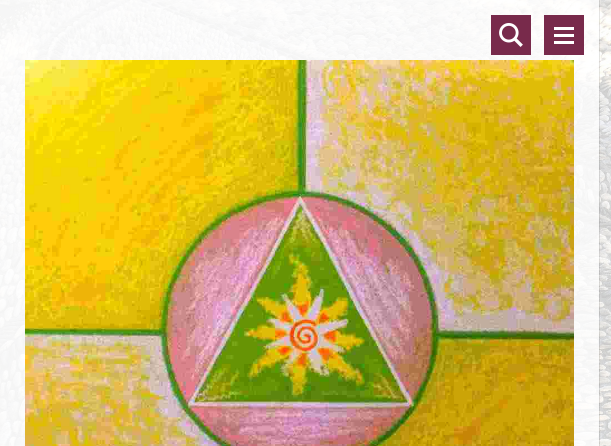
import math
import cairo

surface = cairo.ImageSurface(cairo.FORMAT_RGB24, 611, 446)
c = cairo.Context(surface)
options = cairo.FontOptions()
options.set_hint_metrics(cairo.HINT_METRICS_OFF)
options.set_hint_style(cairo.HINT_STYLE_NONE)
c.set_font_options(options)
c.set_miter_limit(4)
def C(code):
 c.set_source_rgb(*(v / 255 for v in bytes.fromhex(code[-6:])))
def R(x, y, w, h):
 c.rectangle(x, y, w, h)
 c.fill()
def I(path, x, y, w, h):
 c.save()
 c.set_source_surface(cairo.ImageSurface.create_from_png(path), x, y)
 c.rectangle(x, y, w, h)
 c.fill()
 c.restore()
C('ffffff')
c.paint()
I('1.png',0,0,611,446)
c.rectangle(-.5,-.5,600,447)
c.set_source_rgba(0,0,0,0.1)
c.set_line_width(1)
c.stroke()
C('782a4b')
R(491,15,40,40)
I('2.png',499,23,24,24)
R(544,15,40,40)
C('ffffff')
R(554,27,20,3)
R(554,34,20,3)
R(554,41,20,3)
I('3.png',25,60,549,386)
surface.write_to_png('o.png')
